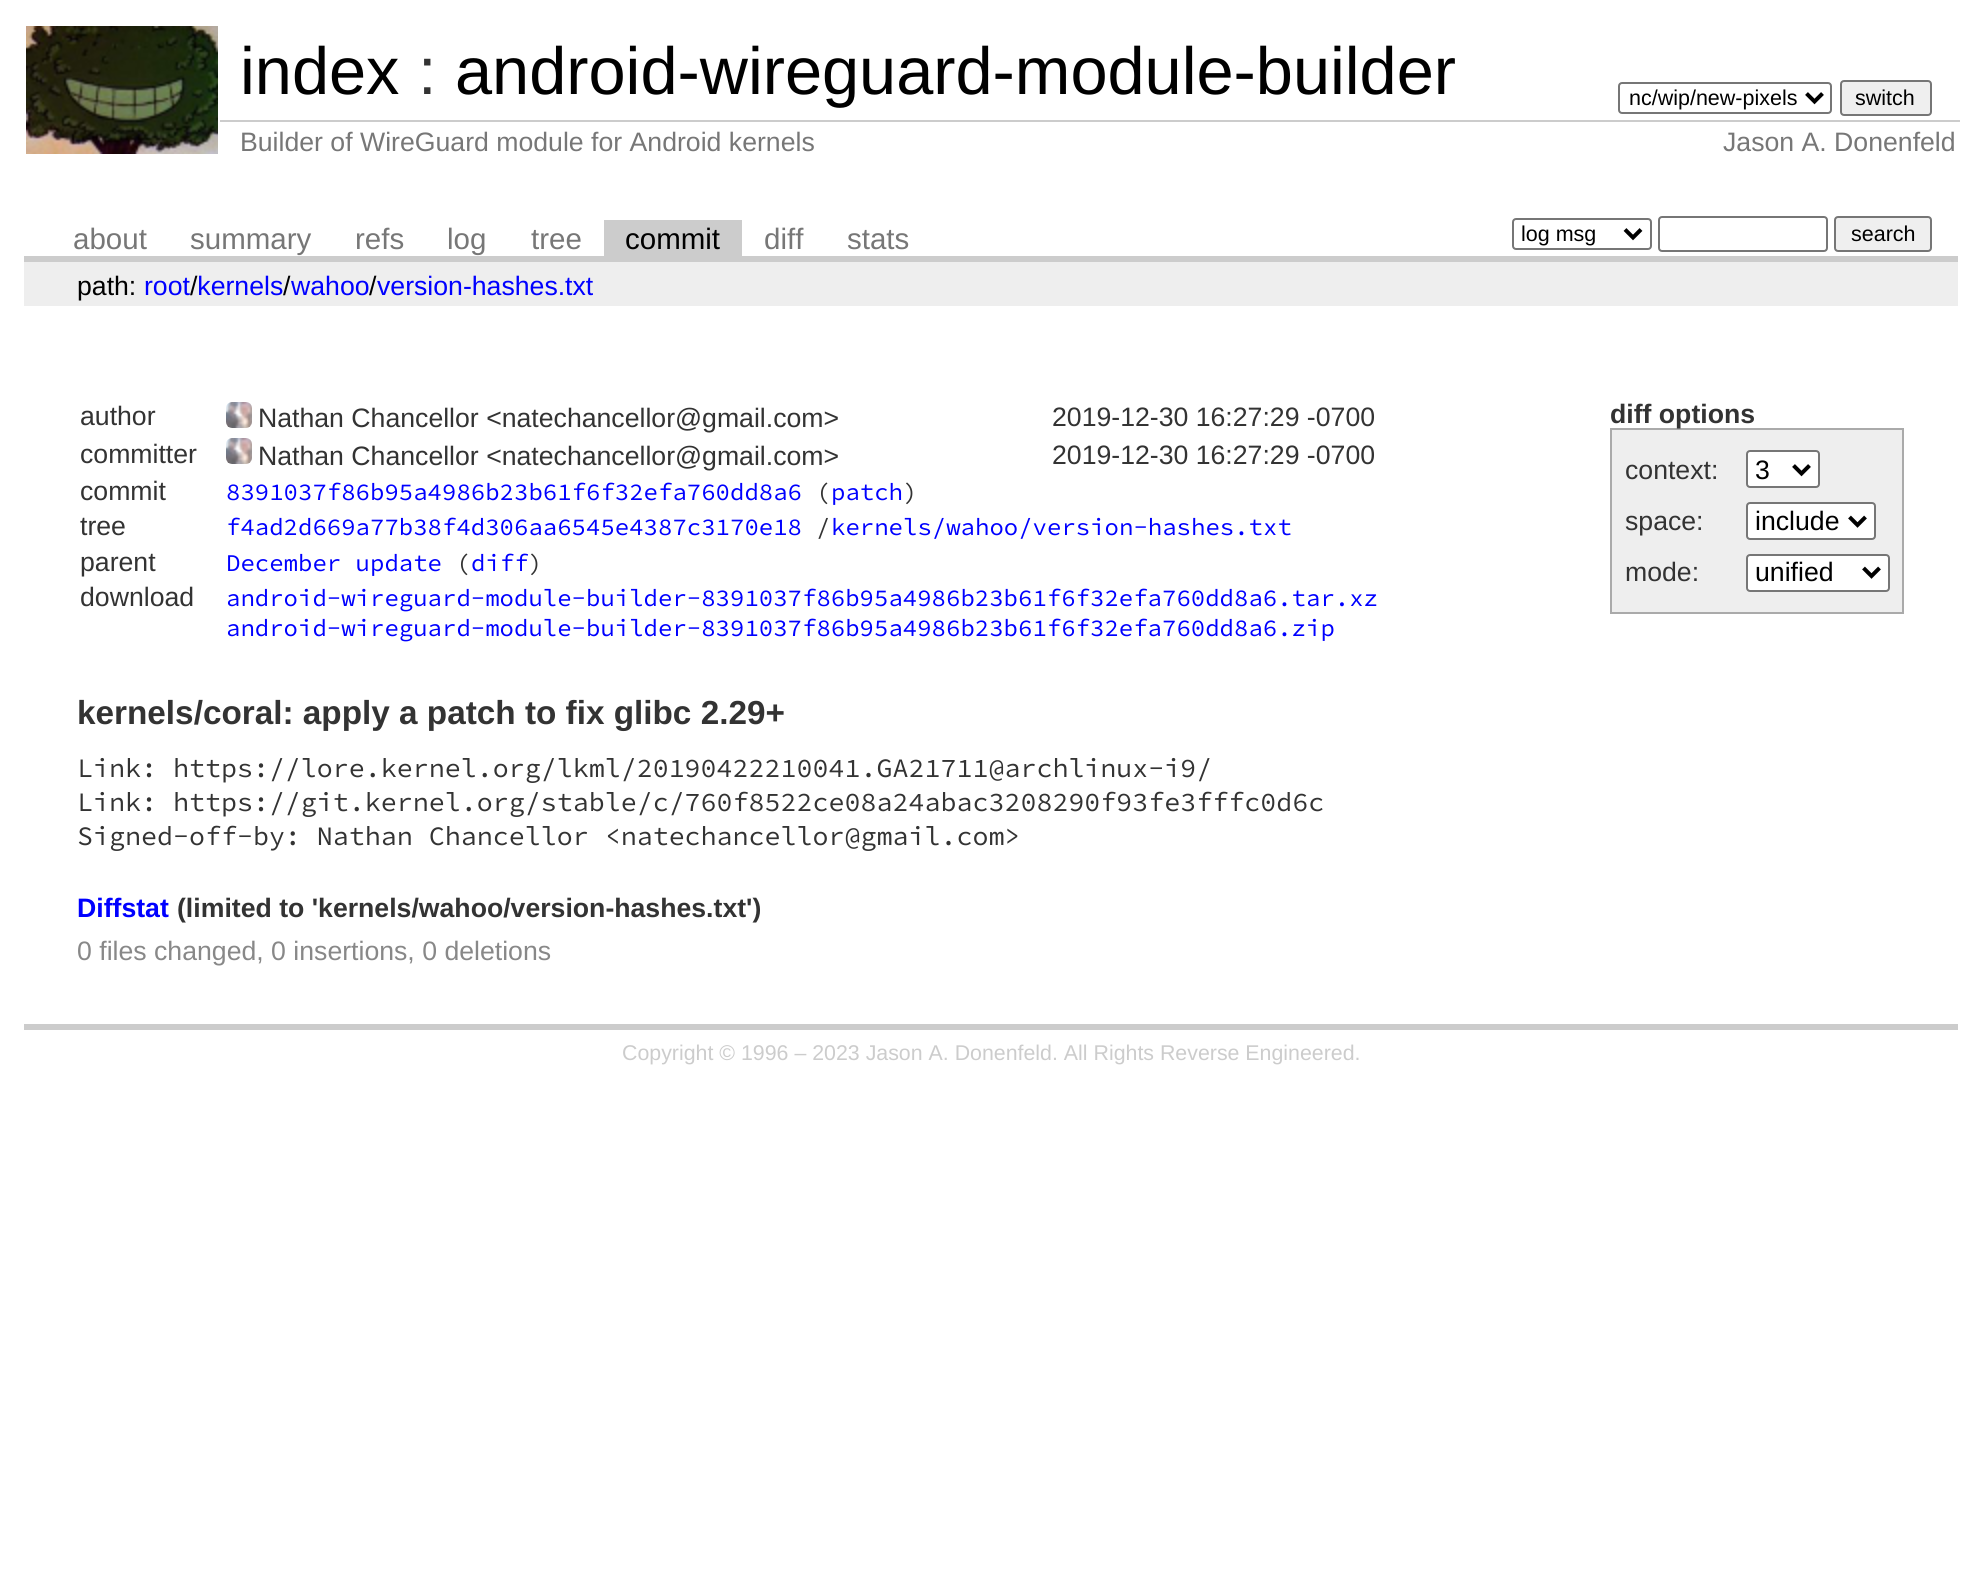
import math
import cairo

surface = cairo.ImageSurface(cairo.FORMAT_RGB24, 1982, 1595)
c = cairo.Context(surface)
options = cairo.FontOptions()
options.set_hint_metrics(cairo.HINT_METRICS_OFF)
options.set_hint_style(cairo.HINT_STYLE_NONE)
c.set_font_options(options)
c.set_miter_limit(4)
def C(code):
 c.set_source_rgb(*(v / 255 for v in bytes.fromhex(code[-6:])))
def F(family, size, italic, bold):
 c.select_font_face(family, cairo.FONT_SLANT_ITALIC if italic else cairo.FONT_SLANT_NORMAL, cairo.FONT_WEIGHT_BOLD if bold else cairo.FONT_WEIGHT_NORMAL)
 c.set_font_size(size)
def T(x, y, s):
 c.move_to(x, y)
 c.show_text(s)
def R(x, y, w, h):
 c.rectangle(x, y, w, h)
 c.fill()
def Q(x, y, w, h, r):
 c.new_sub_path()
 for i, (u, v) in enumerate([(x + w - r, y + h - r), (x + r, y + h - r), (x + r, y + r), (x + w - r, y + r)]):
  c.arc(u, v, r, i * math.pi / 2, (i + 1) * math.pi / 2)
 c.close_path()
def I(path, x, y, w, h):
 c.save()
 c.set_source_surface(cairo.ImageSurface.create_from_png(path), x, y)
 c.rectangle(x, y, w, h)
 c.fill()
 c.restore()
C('ffffff')
c.paint()
I('1.png',26,26,192,128)
F('Liberation Sans',66.7,0,0)
C('000000')
T(240,94,'index')
C('333333')
T(418,94,':')
C('000000')
T(455,94,'android-wireguard-module-builder')
Q(1619,83,212,30,3)
C('767676')
c.stroke()
c.new_path()
c.move_to(1806.5,93.5)
c.line_to(1814.5,101.5)
c.line_to(1822.5,93.5)
C('000000')
c.set_line_width(4)
c.stroke()
F('Liberation Sans',21.5,0,0)
T(1629,105,'nc/wip/new-pixels')
C('efefef')
Q(1841,81,90,34,3)
c.fill_preserve()
C('767676')
c.set_line_width(2)
c.stroke()
C('000000')
T(1855,105,'switch')
F('Liberation Sans',26.65,0,0)
C('777777')
T(240,151,'Builder of WireGuard module for Android kernels')
C('cccccc')
R(220,120,1740,2)
C('777777')
T(1723,151,'Jason A. Donenfeld')
C('cccccc')
R(24,256,1934,6)
F('Liberation Sans',29.5,0,0)
C('777777')
T(73,249,'about')
T(190,249,'summary')
T(355,249,'refs')
T(447,249,'log')
T(531,249,'tree')
C('cccccc')
R(604,220,138,36)
C('000000')
T(625,249,'commit')
C('777777')
T(764,249,'diff')
T(847,249,'stats')
Q(1513,219,138,30,3)
C('767676')
c.stroke()
c.new_path()
c.move_to(1625,229.5)
c.line_to(1633,237.5)
c.line_to(1641,229.5)
C('000000')
c.set_line_width(4)
c.stroke()
F('Liberation Sans',21.5,0,0)
T(1521,241,'log msg')
Q(1659,217,168,34,3)
C('767676')
c.set_line_width(2)
c.stroke()
C('efefef')
Q(1835,217,96,34,3)
c.fill_preserve()
C('767676')
c.stroke()
C('000000')
T(1851,241,'search')
C('eeeeee')
R(24,262,1934,44)
F('Liberation Sans',26.65,0,0)
C('000000')
T(77,295,'path:')
C('0000ff')
T(144,295,'root kernels')
C('000000')
T(190,295,'/')
T(283,295,'/')
C('0000ff')
T(291,295,'wahoo')
C('000000')
T(369,295,'/')
C('0000ff')
T(377,295,'version-hashes.txt')
C('cccccc')
R(24,1024,1934,6)
C('333333')
T(80,425,'author')
I('2.png',226,402,26,26)
T(258,427,'Nathan Chancellor <natechancellor@gmail.com>')
T(1052,426,'2019-12-30 16:27:29 -0700')
T(80,463,'committer')
I('2.png',226,438,26,26)
T(258,465,'Nathan Chancellor <natechancellor@gmail.com>')
T(1052,464,'2019-12-30 16:27:29 -0700')
T(80,500,'commit')
F('Source Code Pro',24,0,0)
C('0000ff')
T(226,500,'8391037f86b95a4986b23b61f6f32efa760dd8a6')
C('333333')
T(816,500,'(')
C('0000ff')
T(831,500,'patch')
C('333333')
T(903,500,')')
F('Liberation Sans',26.65,0,0)
T(80,535,'tree')
F('Source Code Pro',24,0,0)
C('0000ff')
T(226,535,'f4ad2d669a77b38f4d306aa6545e4387c3170e18')
C('333333')
T(816,535,'/')
C('0000ff')
T(831,535,'kernels/wahoo/version-hashes.txt')
F('Liberation Sans',26.65,0,0)
C('333333')
T(80,571,'parent')
F('Source Code Pro',24,0,0)
C('0000ff')
T(226,571,'December update')
C('333333')
T(456,571,'(')
C('0000ff')
T(471,571,'diff')
C('333333')
T(528,571,')')
F('Liberation Sans',26.65,0,0)
T(80,606,'download')
F('Source Code Pro',24,0,0)
C('0000ff')
T(226,606,'android-wireguard-module-builder-8391037f86b95a4986b23b61f6f32efa760dd8a6.tar.xz')
T(226,636,'android-wireguard-module-builder-8391037f86b95a4986b23b61f6f32efa760dd8a6.zip')
C('aaaaaa')
R(1610,428,294,2)
R(1902,428,2,186)
R(1610,612,294,2)
R(1610,428,2,186)
F('Liberation Sans',26.65,0,1)
C('333333')
T(1610,423,'diff options')
C('eeeeee')
R(1612,430,290,182)
F('Liberation Sans',26.65,0,0)
C('333333')
T(1625,479,'context:')
C('ffffff')
Q(1747,451,72,36,3)
c.fill_preserve()
C('767676')
c.stroke()
c.new_path()
c.move_to(1793.5,465.5)
c.line_to(1801.5,473.5)
c.line_to(1809.5,465.5)
C('000000')
c.set_line_width(4)
c.stroke()
T(1755,479,'3')
C('333333')
T(1625,530,'space:')
C('ffffff')
Q(1747,503,128,36,3)
c.fill_preserve()
C('767676')
c.set_line_width(2)
c.stroke()
c.new_path()
c.move_to(1849.5,517)
c.line_to(1857.5,525)
c.line_to(1865.5,517)
C('000000')
c.set_line_width(4)
c.stroke()
T(1755,530,'include')
C('333333')
T(1625,581,'mode:')
C('ffffff')
Q(1747,555,142,36,3)
c.fill_preserve()
C('767676')
c.set_line_width(2)
c.stroke()
c.new_path()
c.move_to(1863.5,568)
c.line_to(1871.5,576)
c.line_to(1879.5,568)
C('000000')
c.set_line_width(4)
c.stroke()
T(1755,581,'unified')
F('Liberation Sans',33.3,0,1)
C('333333')
T(77,724,'kernels/coral: apply a patch to fix glibc 2.29+')
F('Source Code Pro',26.65,0,0)
T(77,777,'Link: https://lore.kernel.org/lkml/20190422210041.GA21711@archlinux-i9/')
T(77,811,'Link: https://git.kernel.org/stable/c/760f8522ce08a24abac3208290f93fe3fffc0d6c')
T(77,845,'Signed-off-by: Nathan Chancellor <natechancellor@gmail.com>')
F('Liberation Sans',26.65,0,1)
C('0000ff')
T(77,917,'Diffstat')
C('333333')
T(177,917,'(limited to \'kernels/wahoo/version-hashes.txt\')')
F('Liberation Sans',26.65,0,0)
C('888888')
T(77,960,'0 files changed, 0 insertions, 0 deletions')
F('Liberation Sans',21.35,0,0)
C('cccccc')
T(622,1060,'Copyright © 1996 – 2023 Jason A. Donenfeld. All Rights Reverse Engineered.')
surface.write_to_png('o.png')
